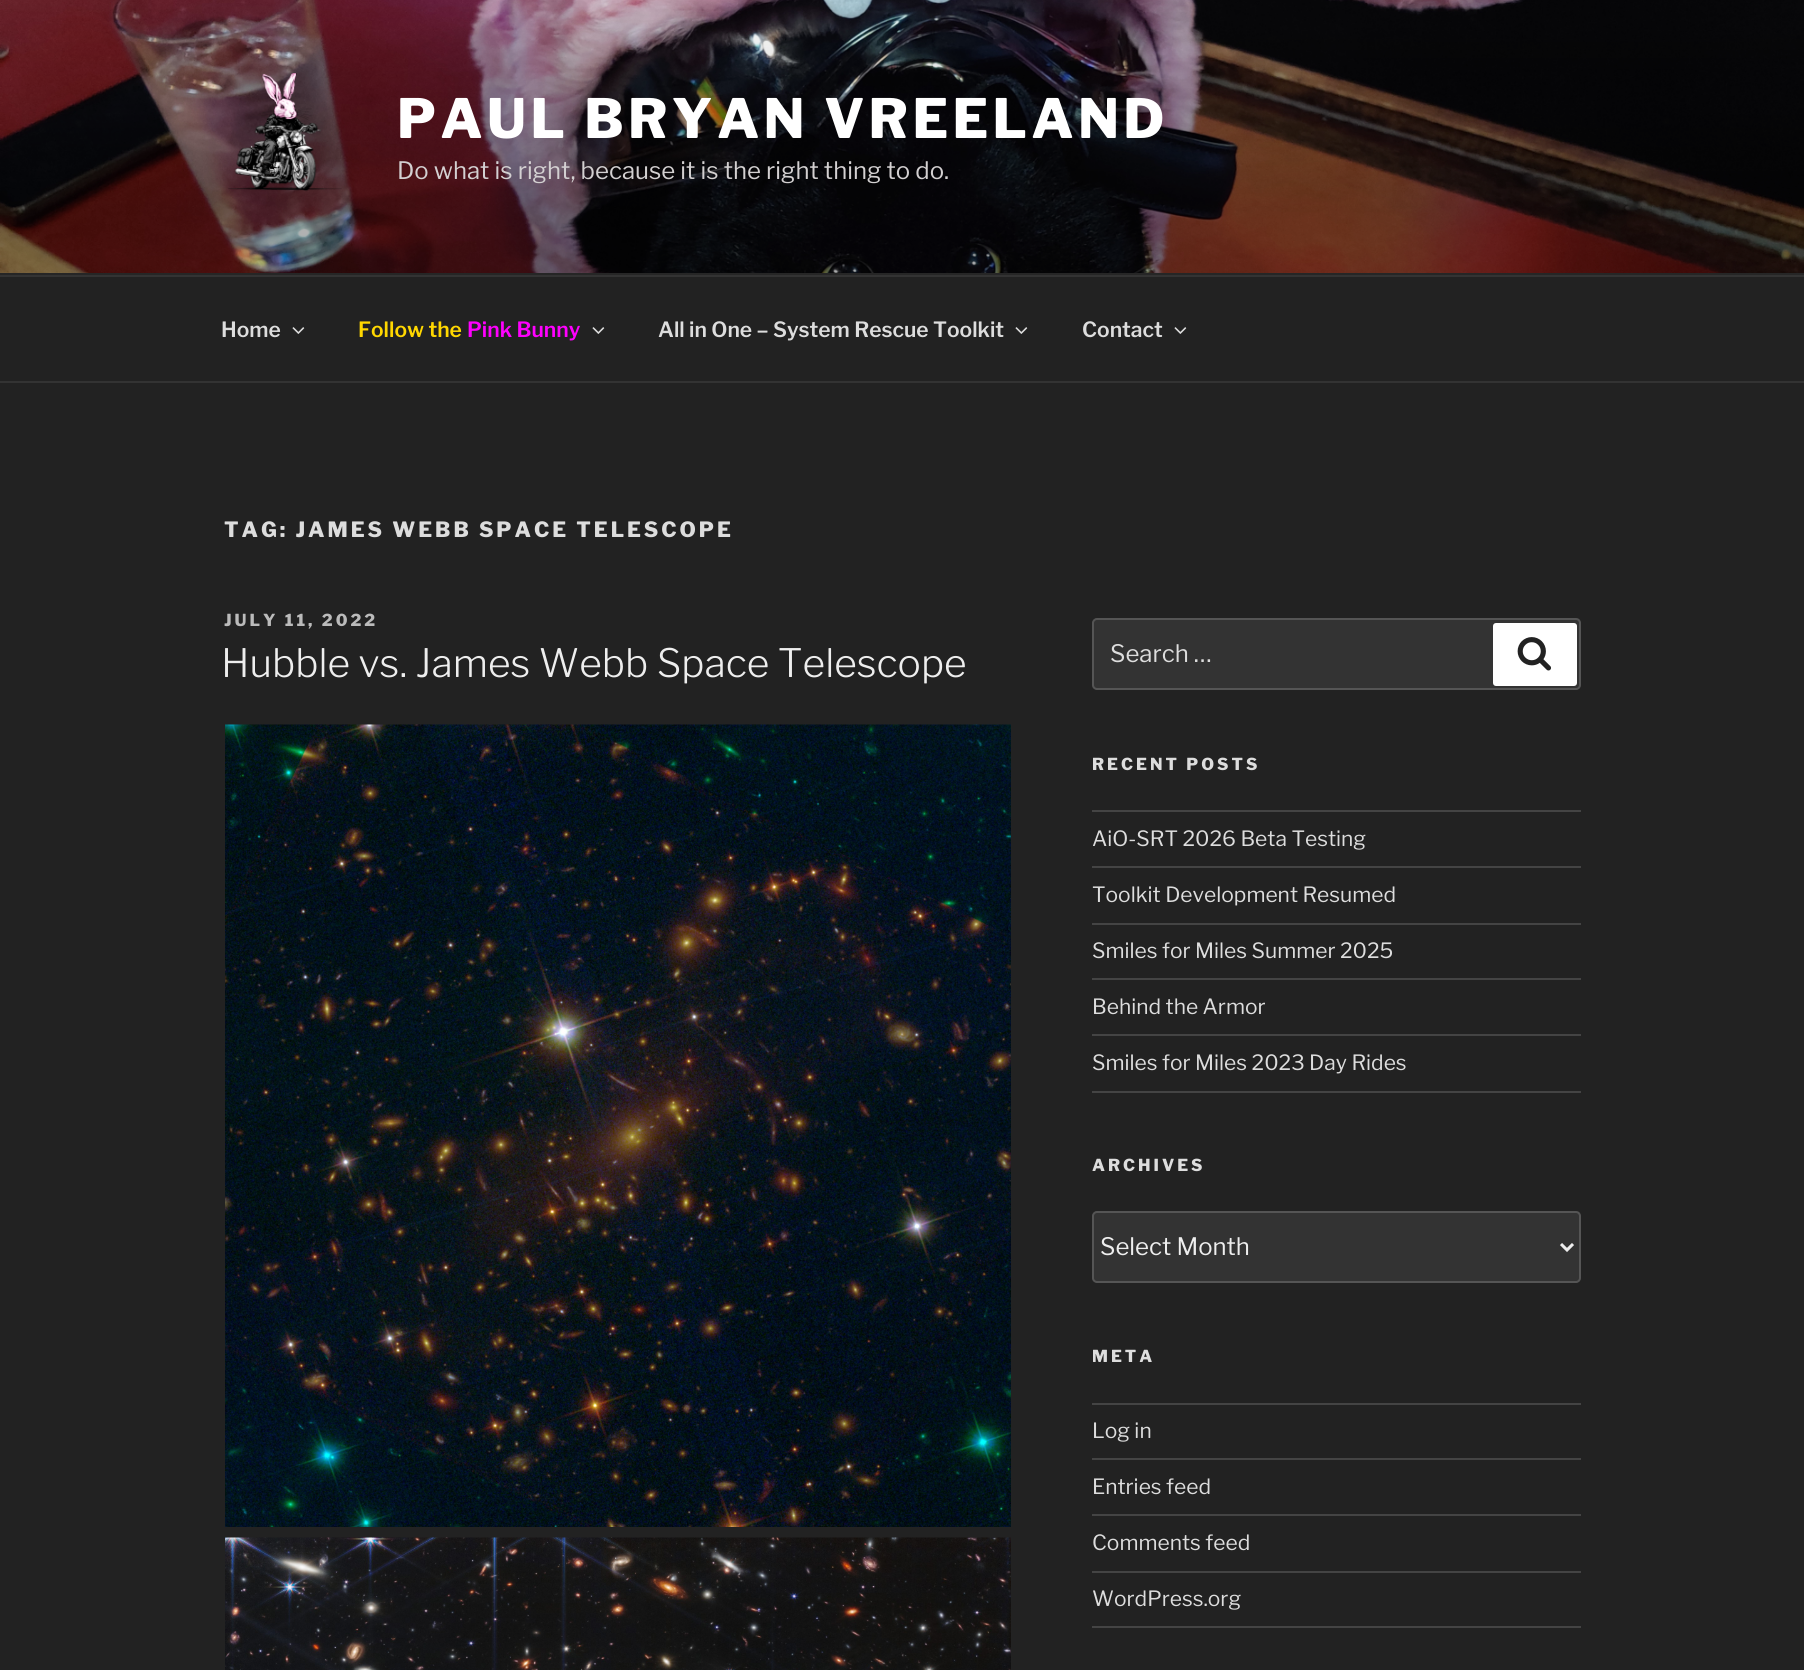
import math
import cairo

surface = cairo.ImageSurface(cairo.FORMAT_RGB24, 1804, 1670)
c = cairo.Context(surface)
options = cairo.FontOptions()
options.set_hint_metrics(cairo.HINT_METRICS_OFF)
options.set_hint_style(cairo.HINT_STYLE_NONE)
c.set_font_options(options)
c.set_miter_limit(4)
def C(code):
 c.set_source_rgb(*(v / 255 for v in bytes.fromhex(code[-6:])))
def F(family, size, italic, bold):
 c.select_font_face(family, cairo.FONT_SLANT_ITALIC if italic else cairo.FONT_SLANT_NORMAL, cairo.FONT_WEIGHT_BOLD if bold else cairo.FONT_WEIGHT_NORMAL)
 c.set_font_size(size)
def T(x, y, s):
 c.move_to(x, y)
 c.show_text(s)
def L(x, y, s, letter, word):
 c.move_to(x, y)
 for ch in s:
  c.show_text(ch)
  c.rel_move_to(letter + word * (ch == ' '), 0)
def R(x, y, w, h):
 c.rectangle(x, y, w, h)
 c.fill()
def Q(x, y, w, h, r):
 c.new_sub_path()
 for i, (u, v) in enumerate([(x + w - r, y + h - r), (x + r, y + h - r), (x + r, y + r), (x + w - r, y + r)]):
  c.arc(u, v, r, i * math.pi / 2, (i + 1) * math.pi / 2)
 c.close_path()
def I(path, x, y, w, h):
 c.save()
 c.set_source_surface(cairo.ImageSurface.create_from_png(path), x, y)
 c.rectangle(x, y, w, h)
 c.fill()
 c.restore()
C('222222')
c.paint()
C('262626')
R(0,273,1804,2)
I('1.png',0,0,1804,273)
I('2.png',228,73,114,118)
F('Libre Franklin Thin',54,0,0)
C('ffffff')
L(397,138,'PAUL BRYAN VREELAND',4.3,0)
F('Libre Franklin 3 Thin',24,0,0)
C('d3d0d1')
T(397,179,'Do what is right, because it is the right thing to do.')
C('333333')
R(0,275,1804,2)
R(0,381,1804,2)
F('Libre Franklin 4 Thin',21,0,0)
C('dddddd')
T(221,337,'Home')
I('3.png',292,327,13,7)
C('ffd700')
T(358,337,'Follow the')
C('ff00ff')
T(467,337,'Pink Bunny')
I('3.png',592,327,13,7)
C('dddddd')
T(658,337,'All in One – System Rescue Toolkit')
I('3.png',1015,327,13,7)
T(1082,337,'Contact')
I('3.png',1174,327,13,7)
F('Libre Franklin Thin',21,0,0)
L(224,537,'TAG: JAMES WEBB SPACE TELESCOPE',2.95,0)
F('Libre Franklin Thin',16.5,0,0)
C('bbbbbb')
L(224,626,'JULY 11, 2022',3,0)
F('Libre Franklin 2 Thin',39,0,0)
C('eeeeee')
T(221,677,'Hubble vs. James Webb Space Telescope')
I('4.png',225,724,786,803)
I('5.png',225,1537,786,133)
C('333333')
Q(1093,619,487,70,4)
c.fill_preserve()
C('555555')
c.stroke()
F('Libre Franklin 3 Thin',24,0,0)
C('dddddd')
T(1110,662,'Search …')
C('ffffff')
Q(1493,623,84,63,3)
c.fill()
I('6.png',1517,637,34,34)
F('Libre Franklin Thin',16.5,0,0)
C('dddddd')
L(1092,770,'RECENT POSTS',3,0)
C('444444')
R(1092,810,489,2)
R(1092,866,489,2)
F('Libre Franklin 3 Thin',21,0,0)
C('dddddd')
T(1092,846,'AiO-SRT 2026 Beta Testing')
C('444444')
R(1092,923,489,2)
C('dddddd')
T(1092,902,'Toolkit Development Resumed')
C('444444')
R(1092,978,489,2)
C('dddddd')
T(1092,958,'Smiles for Miles Summer 2025')
C('444444')
R(1092,1034,489,2)
C('dddddd')
T(1092,1014,'Behind the Armor')
C('444444')
R(1092,1091,489,2)
C('dddddd')
T(1092,1070,'Smiles for Miles 2023 Day Rides')
F('Libre Franklin Thin',16.5,0,0)
L(1092,1171,'ARCHIVES',3,0)
C('333333')
Q(1093,1212,487,70,4)
c.fill_preserve()
C('555555')
c.stroke()
c.new_path()
c.move_to(1561,1244)
c.line_to(1567,1250)
c.line_to(1573,1244)
C('eeeeee')
c.set_line_width(3)
c.stroke()
F('Libre Franklin 3 Thin',24,0,0)
T(1100,1255,'Select Month')
F('Libre Franklin Thin',16.5,0,0)
C('dddddd')
L(1092,1362,'META',3,0)
C('444444')
R(1092,1403,489,2)
R(1092,1458,489,2)
F('Libre Franklin 3 Thin',21,0,0)
C('dddddd')
T(1092,1438,'Log in')
C('444444')
R(1092,1514,489,2)
C('dddddd')
T(1092,1494,'Entries feed')
C('444444')
R(1092,1571,489,2)
C('dddddd')
T(1092,1550,'Comments feed')
C('444444')
R(1092,1626,489,2)
C('dddddd')
T(1092,1606,'WordPress.org')
surface.write_to_png('o.png')
